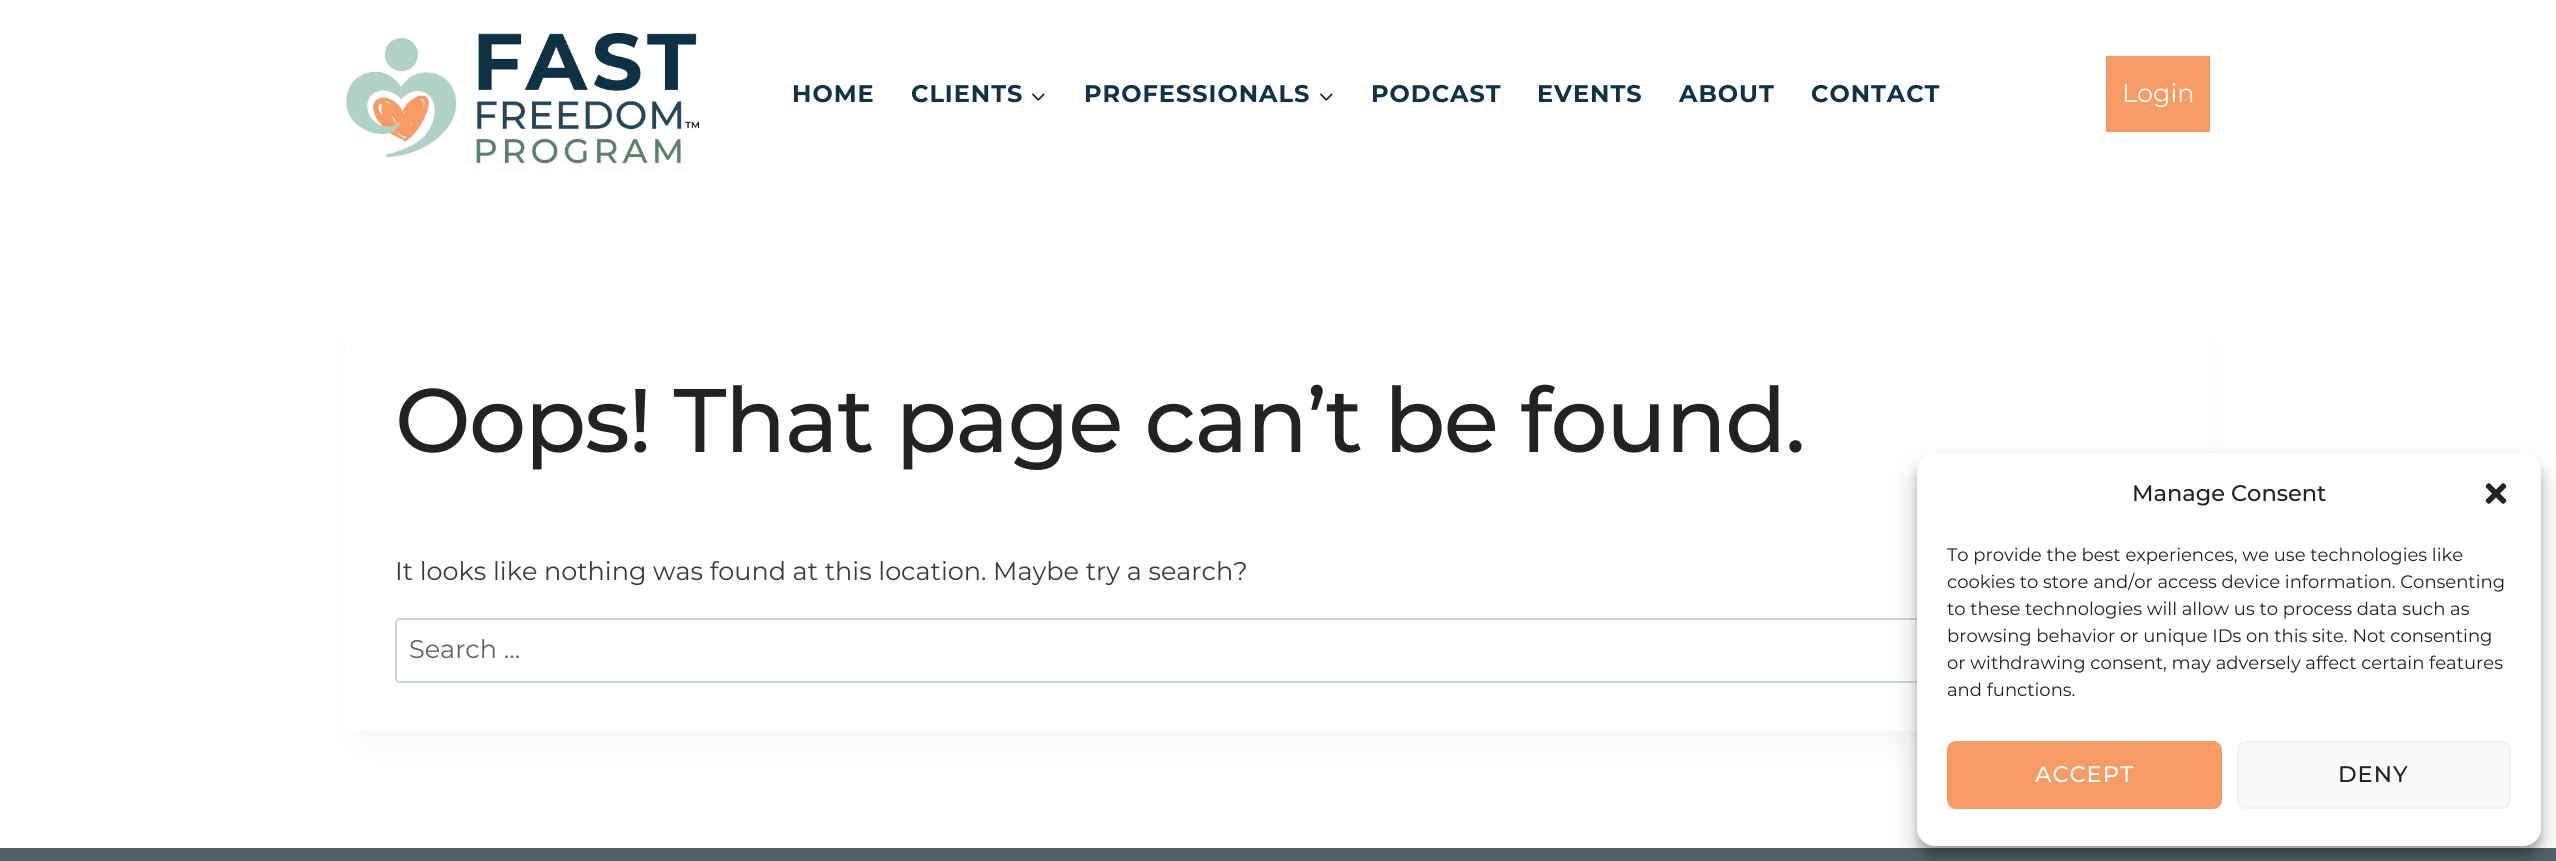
import math
import cairo

surface = cairo.ImageSurface(cairo.FORMAT_RGB24, 2556, 861)
c = cairo.Context(surface)
options = cairo.FontOptions()
options.set_hint_metrics(cairo.HINT_METRICS_OFF)
options.set_hint_style(cairo.HINT_STYLE_NONE)
c.set_font_options(options)
c.set_miter_limit(4)
def C(code):
 c.set_source_rgb(*(v / 255 for v in bytes.fromhex(code[-6:])))
def F(family, size, italic, bold):
 c.select_font_face(family, cairo.FONT_SLANT_ITALIC if italic else cairo.FONT_SLANT_NORMAL, cairo.FONT_WEIGHT_BOLD if bold else cairo.FONT_WEIGHT_NORMAL)
 c.set_font_size(size)
def T(x, y, s):
 c.move_to(x, y)
 c.show_text(s)
def L(x, y, s, letter, word):
 c.move_to(x, y)
 for ch in s:
  c.show_text(ch)
  c.rel_move_to(letter + word * (ch == ' '), 0)
def R(x, y, w, h):
 c.rectangle(x, y, w, h)
 c.fill()
def Q(x, y, w, h, r):
 c.new_sub_path()
 for i, (u, v) in enumerate([(x + w - r, y + h - r), (x + r, y + h - r), (x + r, y + r), (x + w - r, y + r)]):
  c.arc(u, v, r, i * math.pi / 2, (i + 1) * math.pi / 2)
 c.close_path()
def S(x, y, w, h, r, blur, alpha):
 c.push_group_with_content(cairo.CONTENT_ALPHA)
 c.set_operator(cairo.OPERATOR_SOURCE)
 for i in range(15, -16, -2):
  e = blur * i / 6
  if min(w, h) + 2 * e > 0:
   c.set_source_rgba(0, 0, 0, alpha * math.erfc((i - 1) / 8.5) / 2)
   Q(x - e, y - e, w + 2 * e, h + 2 * e, max(0, min(r + e + blur * .6, min(w, h) / 2 + e)))
   c.fill()
 c.mask(c.pop_group())
def I(path, x, y, w, h):
 c.save()
 c.set_source_surface(cairo.ImageSurface.create_from_png(path), x, y)
 c.rectangle(x, y, w, h)
 c.fill()
 c.restore()
C('ffffff')
c.paint()
I('1.png',346,33,353,131)
F('Montserrat',24,0,1)
C('0e3246')
L(792,102,'HOME',1,0)
L(911,102,'CLIENTS',1,0)
I('2.png',1032,93,13,8)
L(1084,102,'PROFESSIONALS',1,0)
I('2.png',1320,93,13,8)
L(1371,102,'PODCAST',1,0)
L(1537,102,'EVENTS',1,0)
L(1679,102,'ABOUT',1,0)
L(1811,102,'CONTACT',1,0)
C('f89b65')
R(2106,56,104,76)
F('Montserrat',25.5,0,0)
C('ffffff')
T(2122,102,'Login')
C('000000')
S(362,342,1833,396,0,19,.05)
C('ffffff')
Q(347,305,1863,426,6)
c.fill()
F('Montserrat Medium',90,0,0)
C('222222')
L(395,452,'Oops! That page can’t be found.',-1.5,0)
F('Montserrat',25.5,0,0)
C('3b3b3b')
T(395,580,'It looks like nothing was found at this location. Maybe try a search?')
Q(396,619,1765,63,4)
C('cbd5e0')
c.stroke()
C('626262')
T(409,658,'Search …')
C('526367')
R(0,848,2556,13)
C('000000')
S(1917,462,624,393,18,4.5,.23)
S(1917,468,624,393,18,15,.19)
C('ffffff')
Q(1917,453,624,393,18)
c.fill()
F('Montserrat Medium',22.5,0,0)
C('222222')
T(2132,501,'Manage Consent')
I('3.png',2485,483,22,21)
F('Montserrat',18,0,0)
T(1947,561,'To provide the best experiences, we use technologies like')
T(1947,588,'cookies to store and/or access device information. Consenting')
T(1947,615,'to these technologies will allow us to process data such as')
T(1947,642,'browsing behavior or unique IDs on this site. Not consenting')
T(1947,669,'or withdrawing consent, may adversely affect certain features')
T(1947,696,'and functions.')
C('f89b65')
Q(1948,742,273,66,8)
c.fill_preserve()
c.stroke()
F('Montserrat Medium',22.5,0,0)
C('ffffff')
L(2035,782,'ACCEPT',1,0)
C('f9f9f9')
Q(2238,742,272,66,8)
c.fill_preserve()
C('f2f2f2')
c.stroke()
C('222222')
L(2338,782,'DENY',1,0)
surface.write_to_png('o.png')
